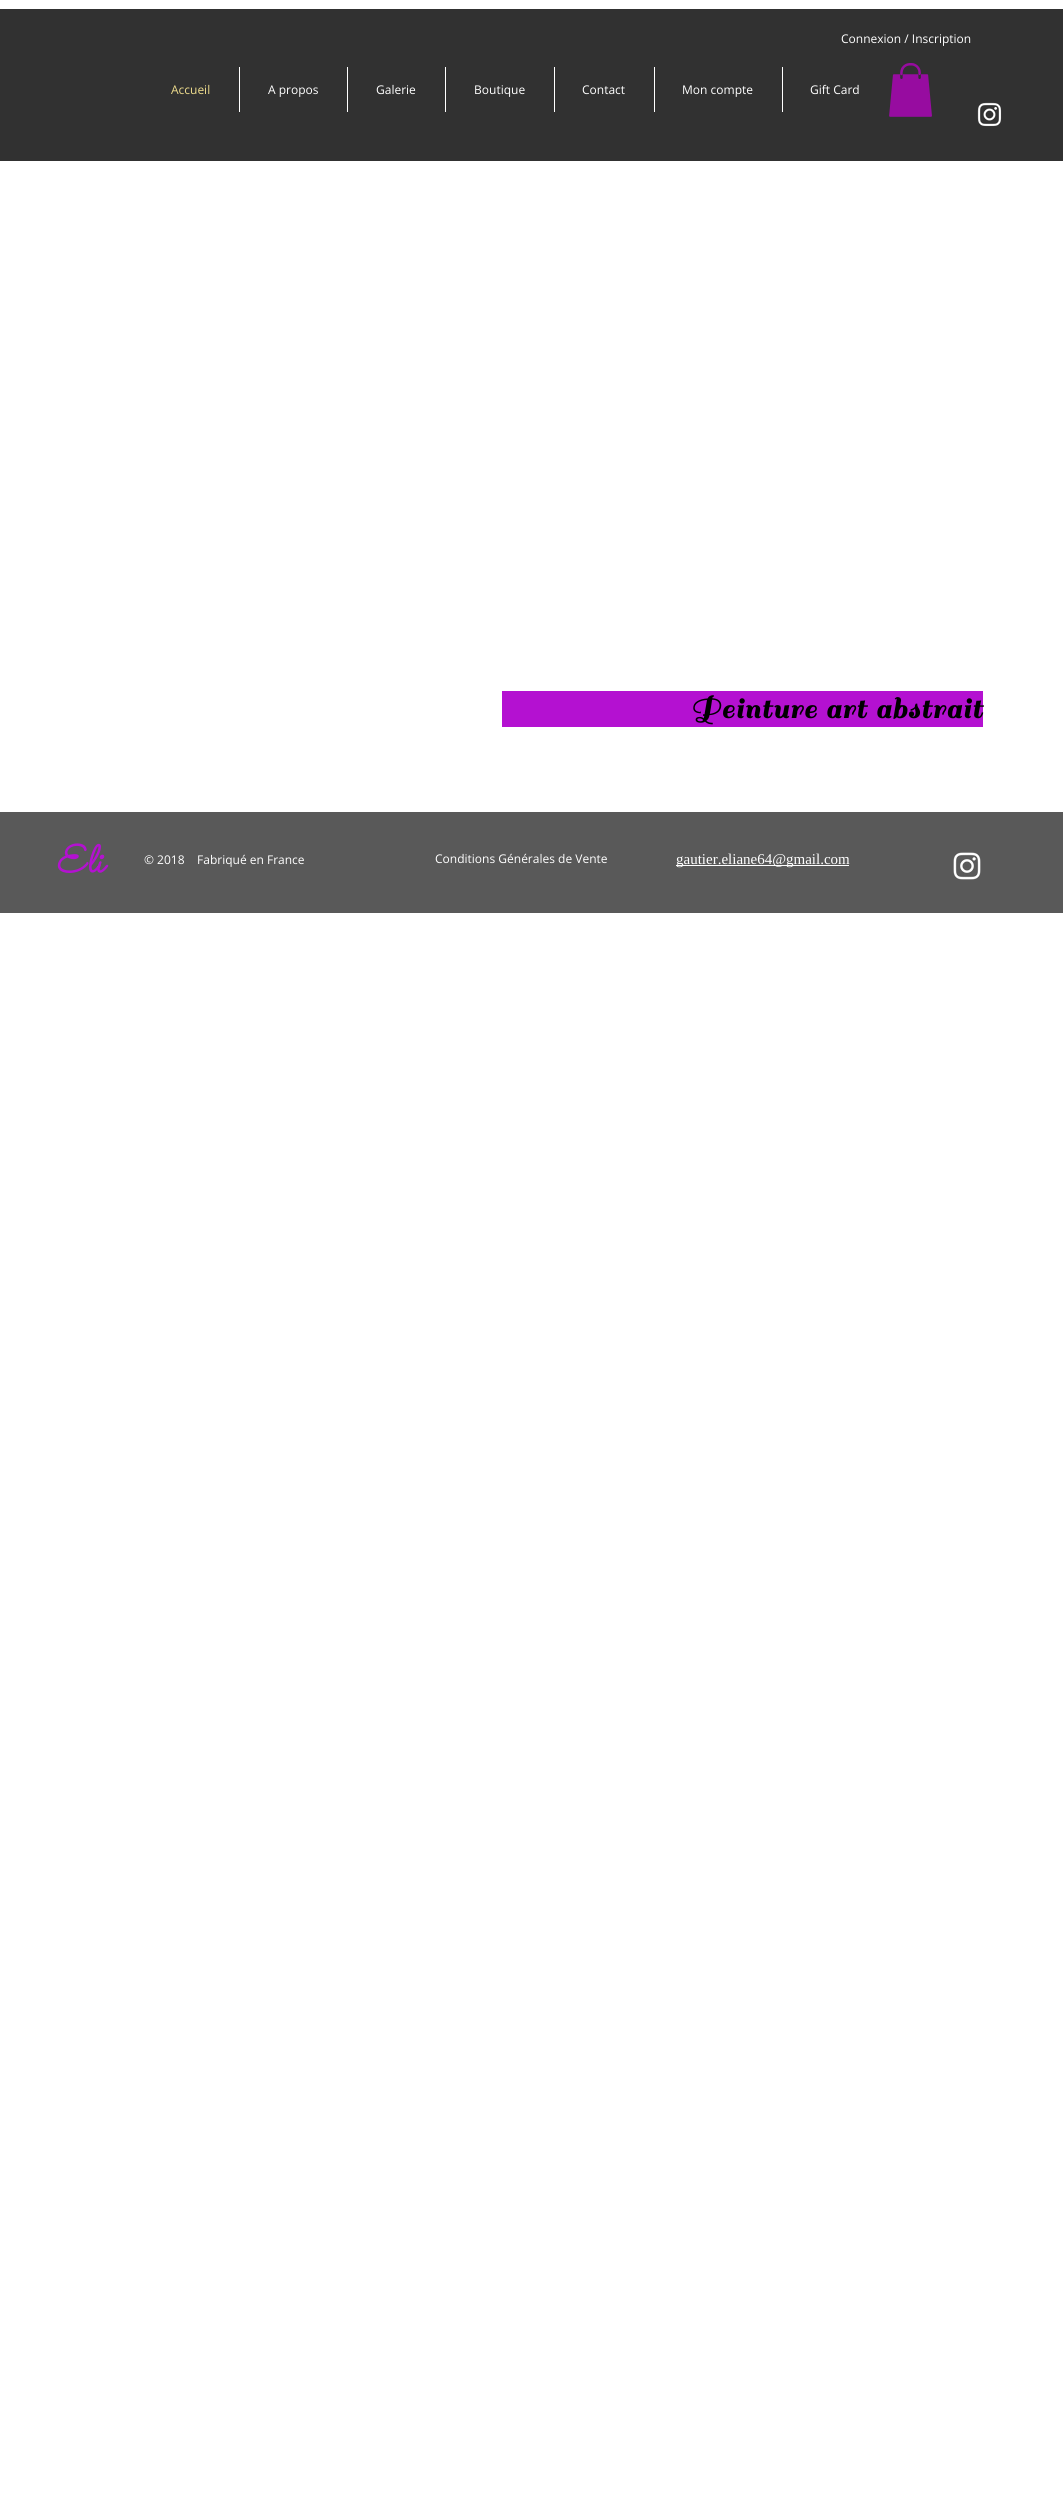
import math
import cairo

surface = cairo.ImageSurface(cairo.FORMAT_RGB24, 1063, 2514)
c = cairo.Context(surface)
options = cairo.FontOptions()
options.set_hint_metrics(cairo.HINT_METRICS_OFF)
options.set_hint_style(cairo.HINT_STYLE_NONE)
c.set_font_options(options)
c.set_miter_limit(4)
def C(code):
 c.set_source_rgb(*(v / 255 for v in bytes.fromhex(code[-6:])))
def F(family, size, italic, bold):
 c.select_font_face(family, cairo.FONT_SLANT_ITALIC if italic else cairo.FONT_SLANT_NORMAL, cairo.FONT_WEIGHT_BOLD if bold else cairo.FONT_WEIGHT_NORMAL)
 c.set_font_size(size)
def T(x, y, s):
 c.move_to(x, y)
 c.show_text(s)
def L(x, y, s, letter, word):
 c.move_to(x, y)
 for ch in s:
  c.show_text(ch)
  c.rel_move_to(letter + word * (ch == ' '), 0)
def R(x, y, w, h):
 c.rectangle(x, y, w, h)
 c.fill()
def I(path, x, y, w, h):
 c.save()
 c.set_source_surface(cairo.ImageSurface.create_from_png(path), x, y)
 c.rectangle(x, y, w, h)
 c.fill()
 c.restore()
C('ffffff')
c.paint()
C('313131')
R(0,9,1063,152)
F('Open Sans',12,0,0)
C('ffffff')
T(841,43,'Connexion / Inscription')
C('efdd8d')
T(171,94,'Accueil')
C('ffffff')
R(239,67,1,45)
T(268,94,'A propos')
R(347,67,1,45)
T(376,94,'Galerie')
R(445,67,1,45)
T(474,94,'Boutique')
R(554,67,1,45)
T(582,94,'Contact')
R(654,67,1,45)
T(682,94,'Mon compte')
R(782,67,1,45)
T(810,94,'Gift Card')
I('1.png',889,63,43,54)
I('2.png',977,102,25,25)
C('b411d1')
R(502,691,481,36)
F('Sail',31,0,1)
C('000000')
L(690,718,'Peinture art abstrait',1.55,0)
C('595959')
R(0,812,1063,101)
F('Sacramento',38,1,1)
C('b411d1')
T(55,872,'Eli')
F('Open Sans',12,0,0)
C('ffffff')
T(144,864,'© 2018    Fabriqué en France')
T(435,863,'Conditions Générales de Vente')
R(676,865,173,1)
F('Liberation Serif',15,0,0)
T(676,864,'gautier.eliane64@gmail.com')
I('3.png',953,852,28,28)
surface.write_to_png('o.png')
